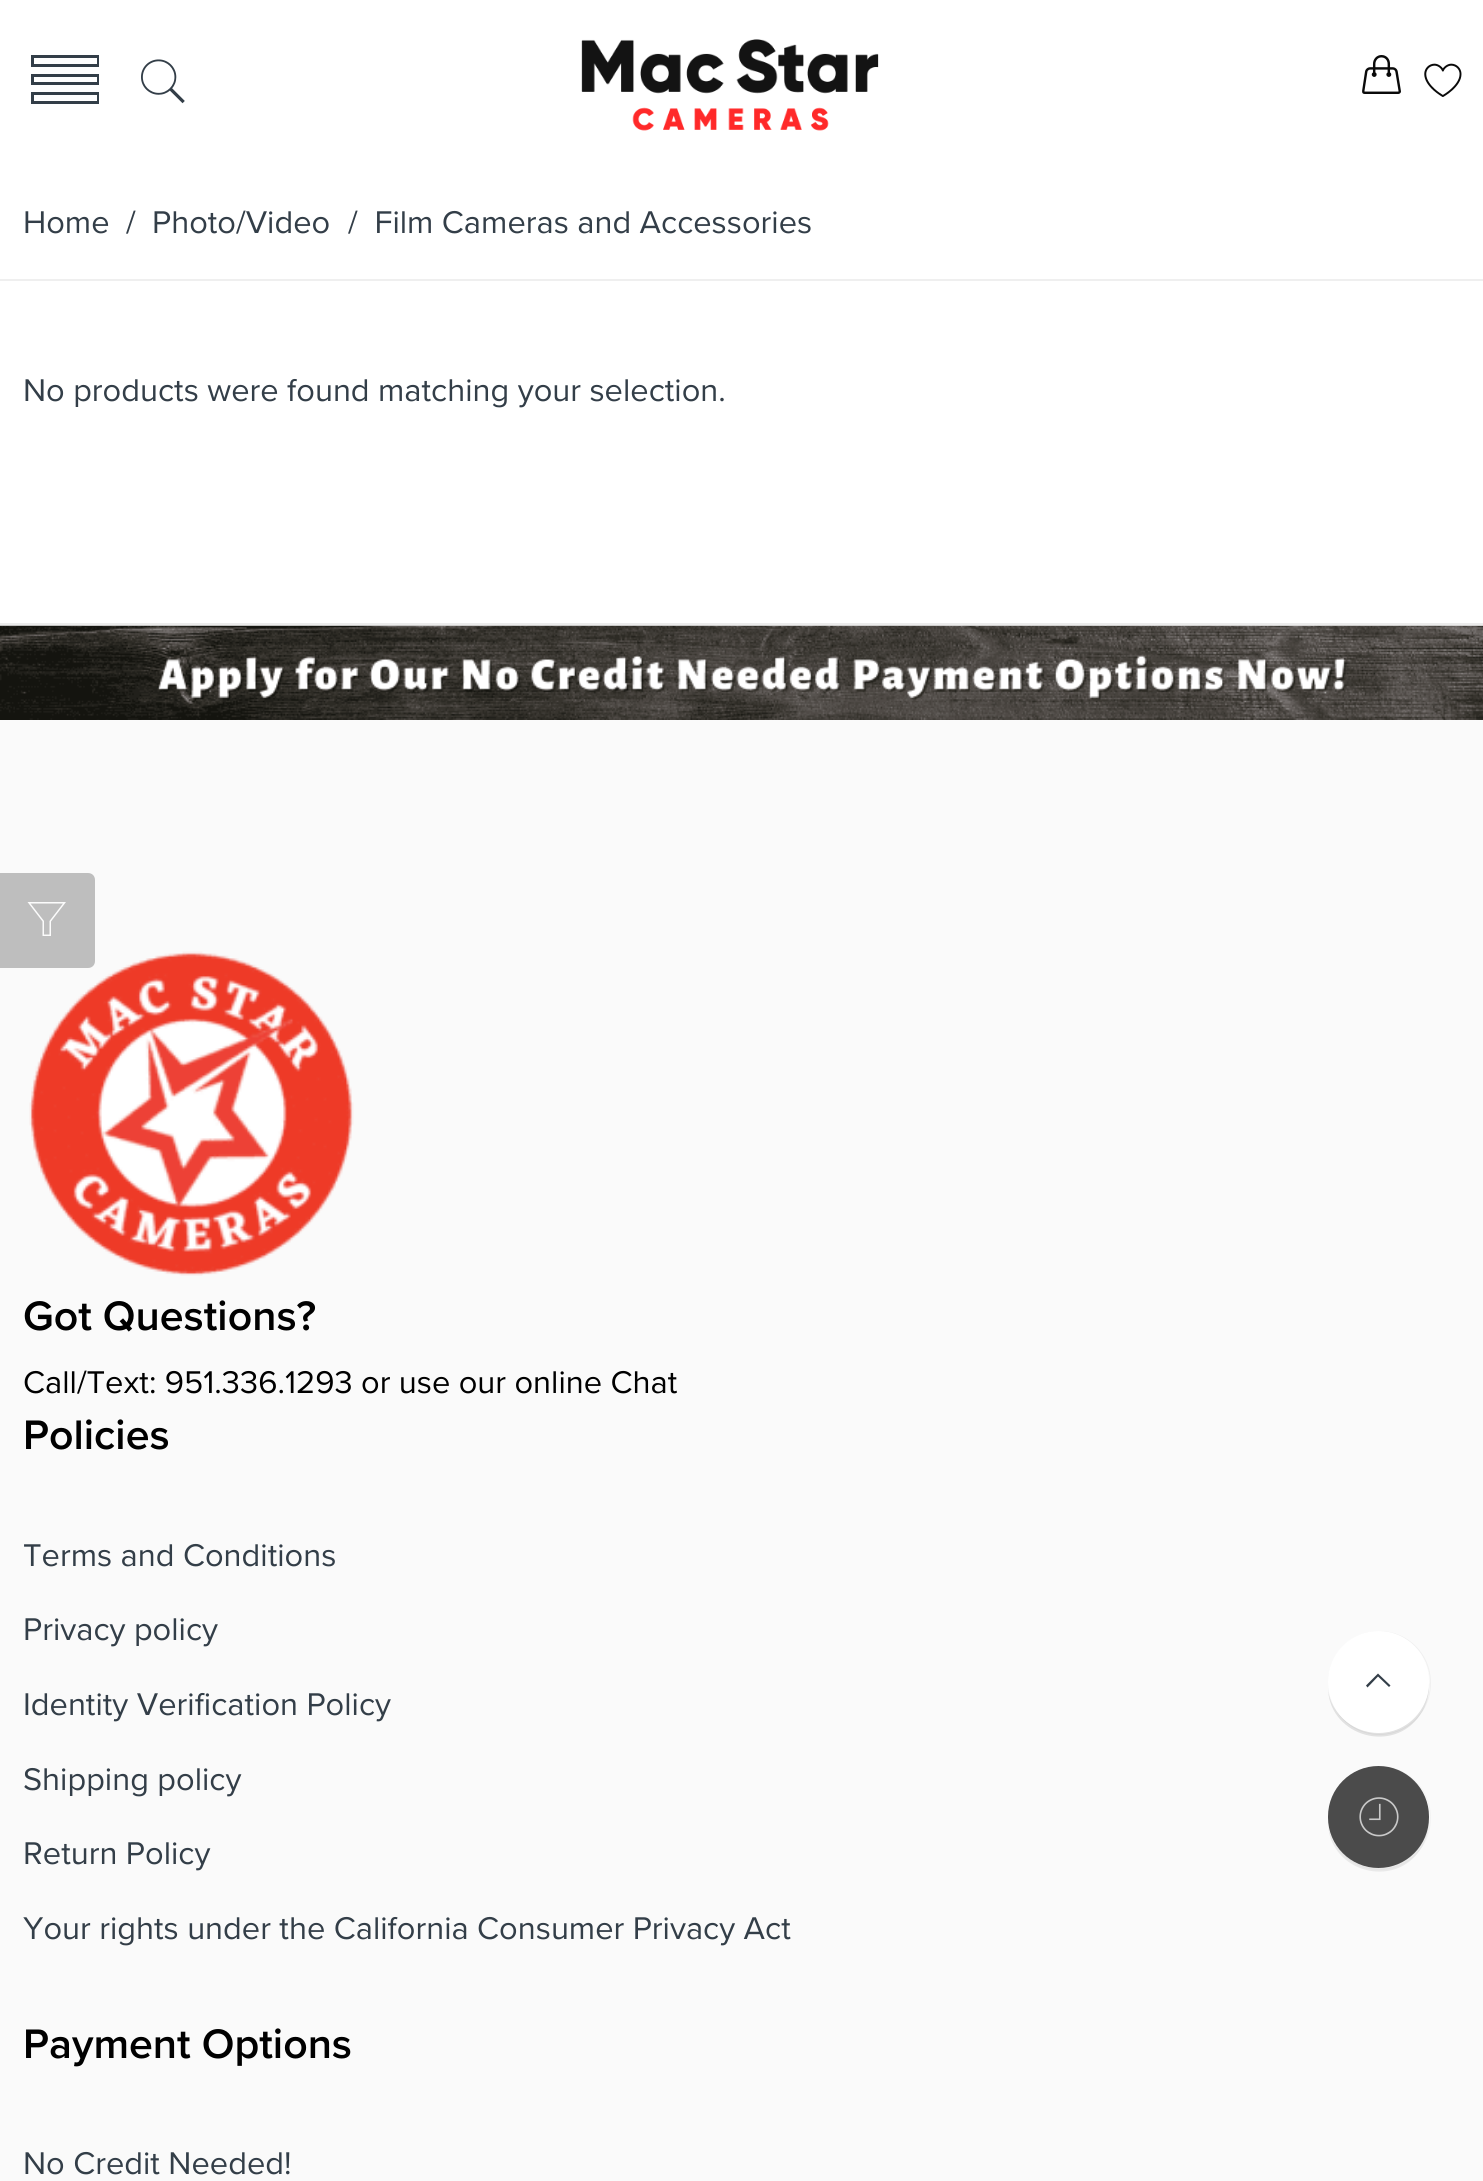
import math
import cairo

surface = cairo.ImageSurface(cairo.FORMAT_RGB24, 1483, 2181)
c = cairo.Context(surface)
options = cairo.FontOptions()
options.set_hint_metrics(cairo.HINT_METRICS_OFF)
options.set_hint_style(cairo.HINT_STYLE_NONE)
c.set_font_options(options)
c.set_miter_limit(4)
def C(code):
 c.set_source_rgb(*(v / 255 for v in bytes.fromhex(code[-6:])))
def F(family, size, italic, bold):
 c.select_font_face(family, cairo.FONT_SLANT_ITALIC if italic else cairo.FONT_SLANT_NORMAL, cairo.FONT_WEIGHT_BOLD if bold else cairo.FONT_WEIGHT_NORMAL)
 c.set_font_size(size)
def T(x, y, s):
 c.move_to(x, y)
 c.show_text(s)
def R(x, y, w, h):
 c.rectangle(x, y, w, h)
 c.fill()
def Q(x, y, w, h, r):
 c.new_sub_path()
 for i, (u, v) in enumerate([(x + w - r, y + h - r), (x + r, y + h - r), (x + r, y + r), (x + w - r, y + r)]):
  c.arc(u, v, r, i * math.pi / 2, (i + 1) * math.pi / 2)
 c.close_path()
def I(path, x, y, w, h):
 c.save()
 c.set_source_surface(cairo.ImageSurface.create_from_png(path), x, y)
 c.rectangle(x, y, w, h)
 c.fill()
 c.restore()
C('ffffff')
c.paint()
C('333e48')
c.new_path()
c.move_to(31,55)
c.line_to(31,67)
c.line_to(99,67)
c.line_to(99,55)
c.close_path()
c.move_to(97,64)
c.line_to(34,64)
c.line_to(34,58)
c.line_to(97,58)
c.close_path()
c.move_to(31,85)
c.line_to(99,85)
c.line_to(99,74)
c.line_to(31,74)
c.close_path()
c.move_to(34,77)
c.line_to(97,77)
c.line_to(97,82)
c.line_to(34,82)
c.close_path()
c.move_to(31,104)
c.line_to(99,104)
c.line_to(99,92)
c.line_to(31,92)
c.close_path()
c.move_to(34,95)
c.line_to(97,95)
c.line_to(97,101)
c.line_to(34,101)
c.close_path()
c.fill()
I('1.png',141,59,44,45)
I('2.png',581,39,298,92)
F('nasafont',39,0,0)
C('0a0a0a')
T(1362,94,'4')
I('3.png',1424,63,38,34)
C('efefef')
R(0,279,1483,2)
F('Proxima Nova',32.6,0,0)
C('333e48')
T(23,233,'Home')
T(126,233,'/')
T(152,233,'Photo/Video')
T(348,233,'/  Film Cameras and Accessories')
T(23,401,'No products were found matching your selection.')
C('fafafa')
R(0,625,1483,1556)
I('5.png',29,951,325,325)
C('bebebe')
c.new_path()
c.move_to(1,874)
c.line_to(88,874)
c.curve_to(91.5,874,94,876.5,94,880)
c.line_to(94,961)
c.curve_to(94,964.5,91.5,967,88,967)
c.line_to(1,967)
c.close_path()
c.fill_preserve()
c.stroke()
C('fcfcfc')
c.new_path()
c.move_to(51,936)
c.line_to(42.5,936)
c.line_to(42.5,921.5)
c.line_to(27.5,902)
c.line_to(66,902)
c.line_to(51,921.5)
c.close_path()
c.move_to(44,934.5)
c.line_to(49.5,934.5)
c.line_to(49.5,921)
c.line_to(63,903.5)
c.line_to(30.5,903.5)
c.line_to(44,921)
c.close_path()
c.fill()
C('ececec')
R(0,623,1483,2)
I('4.png',0,625,1483,95)
F('Proxima Nova SemiBold',42.75,0,0)
C('000000')
T(23,1330,'Got Questions?')
F('Proxima Nova',32.6,0,0)
T(23,1393,'Call/Text: 951.336.1293 or use our online Chat')
F('Proxima Nova SemiBold',42.75,0,0)
T(23,1449,'Policies')
F('Proxima Nova',32.6,0,0)
C('333e48')
T(23,1566,'Terms and Conditions')
T(23,1640,'Privacy policy')
T(23,1715,'Identity Verification Policy')
T(23,1790,'Shipping policy')
T(23,1864,'Return Policy')
T(23,1939,'Your rights under the California Consumer Privacy Act')
F('Proxima Nova SemiBold',42.75,0,0)
C('000000')
T(23,2058,'Payment Options')
F('Proxima Nova',32.6,0,0)
C('333e48')
T(23,2174,'No Credit Needed!')
Q(1328.5,1631.5,102,103,51)
C('f0f0f0')
c.set_line_width(1)
c.stroke()
c.set_source_rgba(0,0,0,0.1)
c.new_path()
c.move_to(1328,1690)
c.curve_to(1331,1737,1394,1754,1420,1715)
c.curve_to(1427,1705,1430,1693,1429,1681)
c.curve_to(1429,1692,1426,1702,1420,1710)
c.curve_to(1395,1748,1335,1735,1328,1690)
c.close_path()
c.fill()
C('ffffff')
Q(1328,1631,101,102,50.5)
c.fill()
C('333e48')
c.new_path()
c.move_to(1379.5,1675)
c.line_to(1378,1673.5)
c.line_to(1366,1685.5)
c.line_to(1367.5,1687.5)
c.line_to(1378,1676.5)
c.line_to(1389,1687)
c.line_to(1390.5,1685.5)
c.close_path()
c.fill()
Q(1328.5,1766.5,102,103,51)
C('f3f3f3')
c.stroke()
c.set_source_rgba(0,0,0,0.07)
c.new_path()
c.move_to(1328,1825)
c.curve_to(1331,1872,1394,1889,1420,1850)
c.curve_to(1427,1840,1430,1828,1429,1816)
c.curve_to(1429,1827,1426,1837,1420,1845)
c.curve_to(1395,1883,1335,1870,1328,1825)
c.close_path()
c.fill()
C('4b4b4b')
Q(1328,1766,101,102,50.5)
c.fill()
I('6.png',1359,1797,40,40)
surface.write_to_png('o.png')
